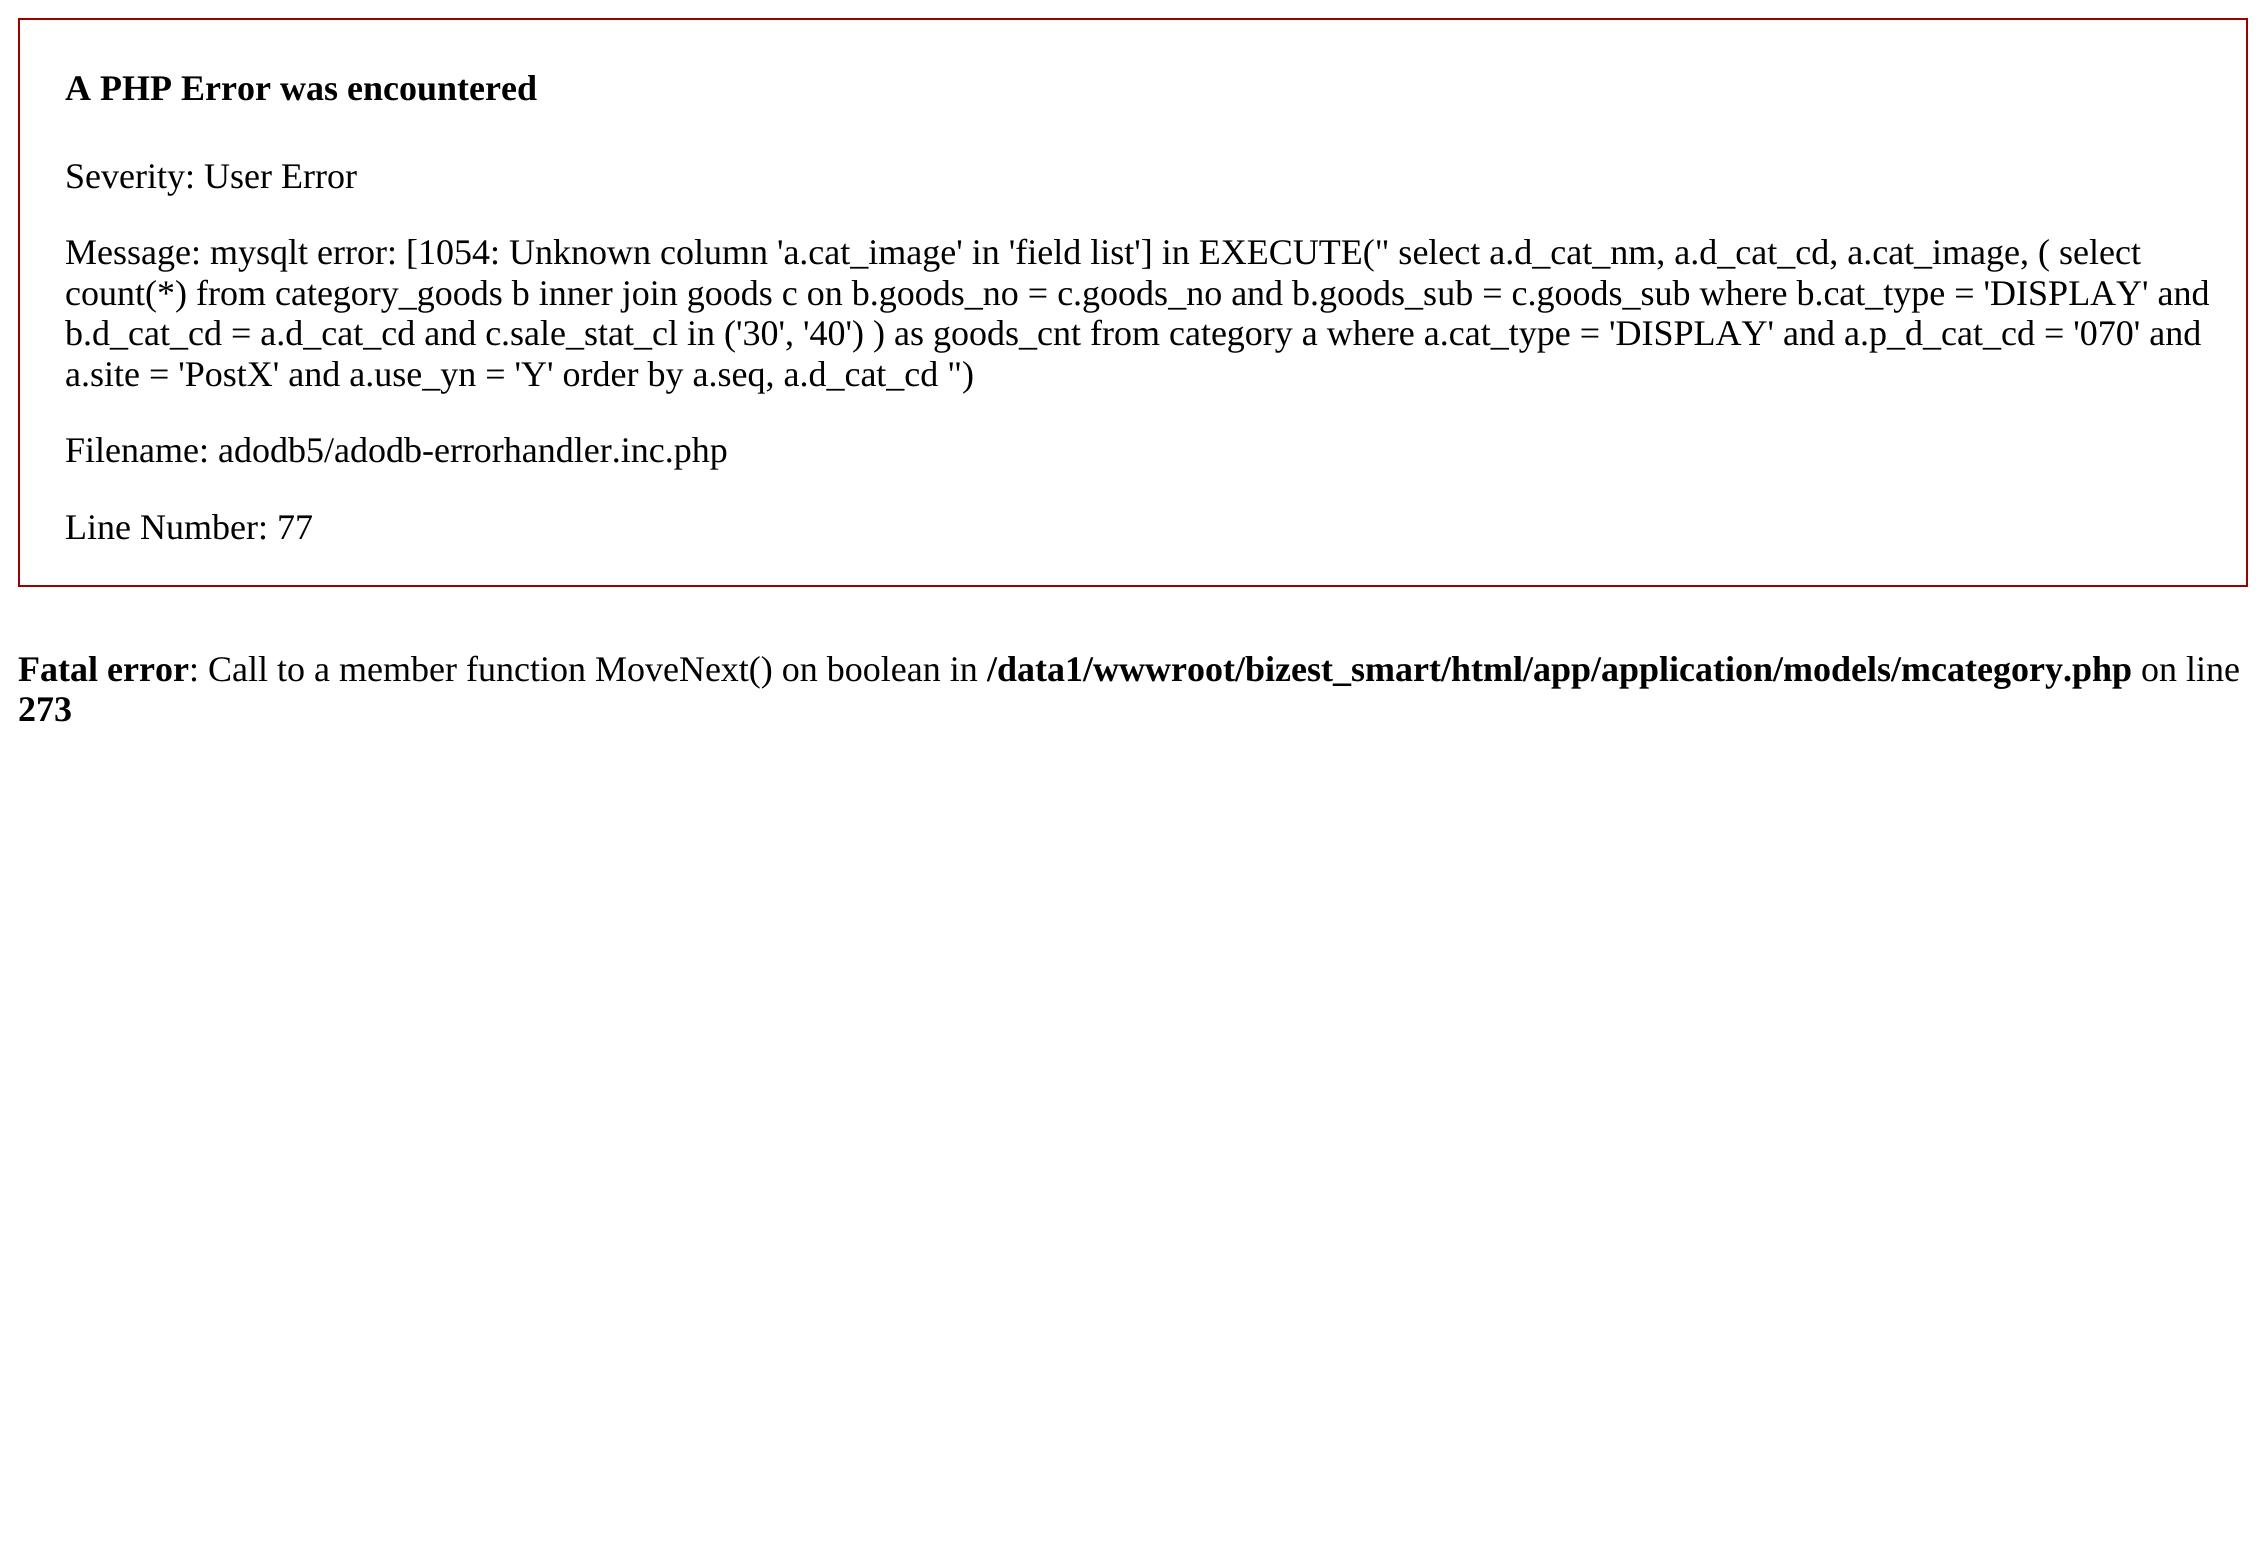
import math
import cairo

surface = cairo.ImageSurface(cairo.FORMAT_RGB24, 2265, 1549)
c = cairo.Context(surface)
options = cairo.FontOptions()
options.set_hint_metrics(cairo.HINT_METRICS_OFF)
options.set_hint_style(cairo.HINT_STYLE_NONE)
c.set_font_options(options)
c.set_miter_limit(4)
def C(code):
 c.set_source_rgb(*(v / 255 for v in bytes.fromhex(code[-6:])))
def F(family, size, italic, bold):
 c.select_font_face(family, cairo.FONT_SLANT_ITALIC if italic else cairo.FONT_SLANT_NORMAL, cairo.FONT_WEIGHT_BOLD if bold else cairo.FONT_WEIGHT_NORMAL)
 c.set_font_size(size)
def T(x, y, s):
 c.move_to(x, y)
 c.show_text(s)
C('ffffff')
c.paint()
c.rectangle(19,19,2228,567)
C('990000')
c.stroke()
F('Liberation Serif',36,0,1)
C('000000')
T(65,100,'A PHP Error was encountered')
F('Liberation Serif',36,0,0)
T(65,188,'Severity: User Error')
T(65,264,'Message: mysqlt error: [1054: Unknown column \'a.cat_image\' in \'field list\'] in EXECUTE(" select a.d_cat_nm, a.d_cat_cd, a.cat_image, ( select')
T(65,305,'count(*) from category_goods b inner join goods c on b.goods_no = c.goods_no and b.goods_sub = c.goods_sub where b.cat_type = \'DISPLAY\' and')
T(65,345,'b.d_cat_cd = a.d_cat_cd and c.sale_stat_cl in (\'30\', \'40\') ) as goods_cnt from category a where a.cat_type = \'DISPLAY\' and a.p_d_cat_cd = \'070\' and')
T(65,386,'a.site = \'PostX\' and a.use_yn = \'Y\' order by a.seq, a.d_cat_cd ")')
T(65,462,'Filename: adodb5/adodb-errorhandler.inc.php')
T(65,539,'Line Number: 77')
F('Liberation Serif',36,0,1)
T(18,681,'Fatal error')
F('Liberation Serif',36,0,0)
T(189,681,': Call to a member function MoveNext() on boolean in')
F('Liberation Serif',36,0,1)
T(987,681,'/data1/wwwroot/bizest_smart/html/app/application/models/mcategory.php')
F('Liberation Serif',36,0,0)
T(2141,681,'on line')
F('Liberation Serif',36,0,1)
T(18,721,'273')
surface.write_to_png('o.png')
